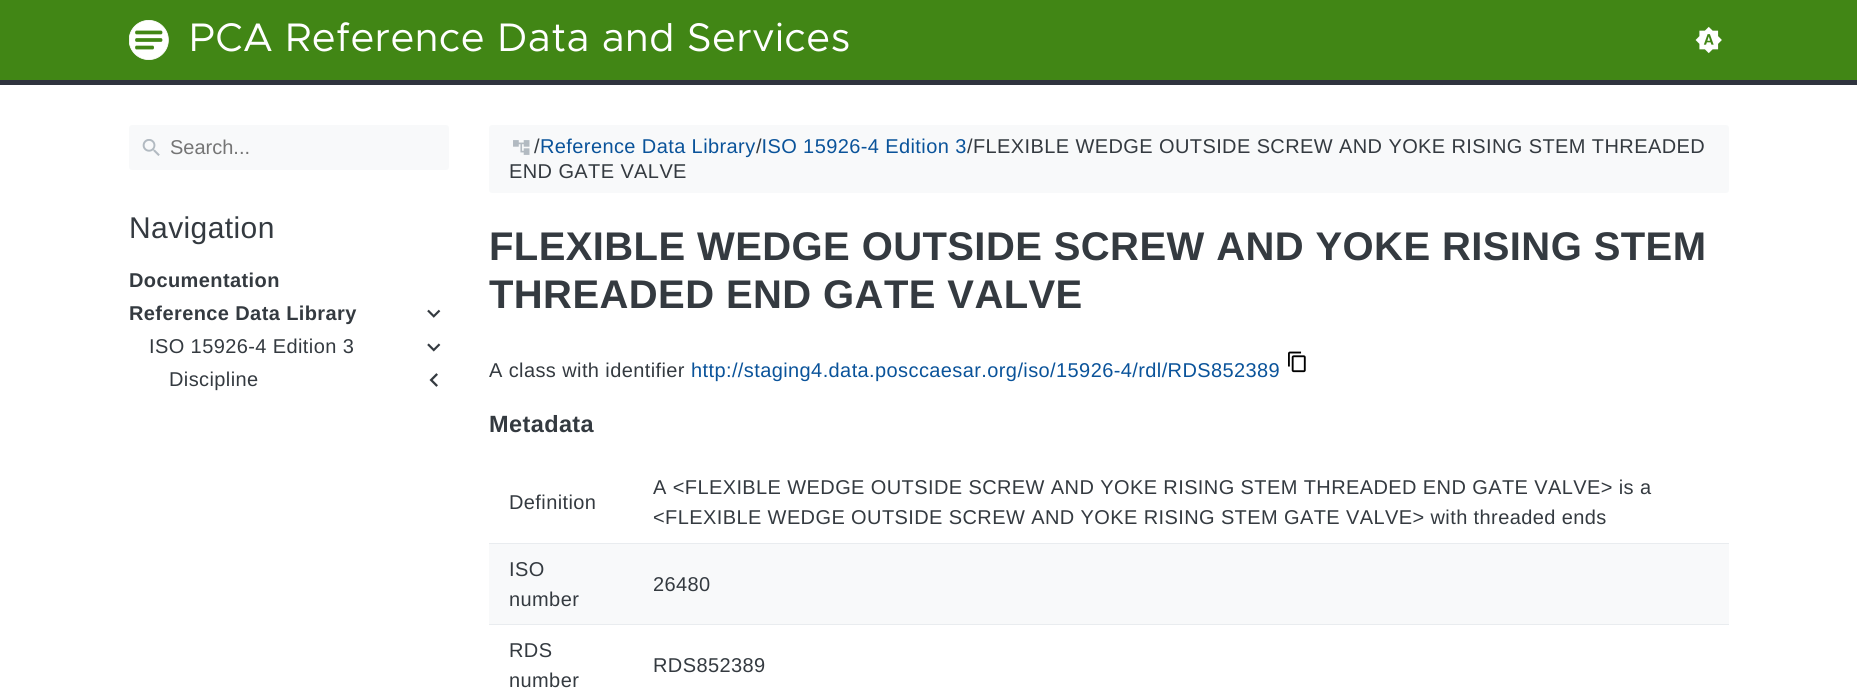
import math
import cairo

surface = cairo.ImageSurface(cairo.FORMAT_RGB24, 1857, 690)
c = cairo.Context(surface)
options = cairo.FontOptions()
options.set_hint_metrics(cairo.HINT_METRICS_OFF)
options.set_hint_style(cairo.HINT_STYLE_NONE)
c.set_font_options(options)
c.set_miter_limit(4)
def C(code):
 c.set_source_rgb(*(v / 255 for v in bytes.fromhex(code[-6:])))
def F(family, size, italic, bold):
 c.select_font_face(family, cairo.FONT_SLANT_ITALIC if italic else cairo.FONT_SLANT_NORMAL, cairo.FONT_WEIGHT_BOLD if bold else cairo.FONT_WEIGHT_NORMAL)
 c.set_font_size(size)
def T(x, y, s):
 c.move_to(x, y)
 c.show_text(s)
def L(x, y, s, letter, word):
 c.move_to(x, y)
 for ch in s:
  c.show_text(ch)
  c.rel_move_to(letter + word * (ch == ' '), 0)
def R(x, y, w, h):
 c.rectangle(x, y, w, h)
 c.fill()
def Q(x, y, w, h, r):
 c.new_sub_path()
 for i, (u, v) in enumerate([(x + w - r, y + h - r), (x + r, y + h - r), (x + r, y + r), (x + w - r, y + r)]):
  c.arc(u, v, r, i * math.pi / 2, (i + 1) * math.pi / 2)
 c.close_path()
def I(path, x, y, w, h):
 c.save()
 c.set_source_surface(cairo.ImageSurface.create_from_png(path), x, y)
 c.rectangle(x, y, w, h)
 c.fill()
 c.restore()
C('ffffff')
c.paint()
C('418615')
R(0,0,1857,80)
C('2f333e')
R(0,80,1857,5)
I('1.png',129,20,40,40)
F('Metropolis',40,0,0)
C('ffffff')
L(189,51,'PCA Reference Data and Services',.4,0)
I('2.png',1695,26,27,28)
C('f8f9fa')
Q(129,125,320,45,3)
c.fill()
I('3.png',142,139,18,17)
F('Liberation Sans',20,0,0)
C('757575')
T(170,154,'Search...')
F('Liberation Sans',30,0,0)
C('343a40')
L(129,238,'Navigation',.4,0)
F('Liberation Sans',20,0,1)
L(129,287,'Documentation',.4,0)
L(129,320,'Reference Data Library',.4,0)
I('4.png',427,309,14,9)
F('Liberation Sans',20,0,0)
L(149,353,'ISO 15926-4 Edition 3',.4,0)
I('5.png',427,343,14,9)
L(169,386,'Discipline',.4,0)
I('6.png',429,373,9,14)
C('f8f9fa')
Q(489,125,1240,68,3)
c.fill()
C('343a40')
L(534,153,'/',.4,0)
C('0a539a')
L(540,153,'Reference Data Library ISO 15926-4 Edition 3',.4,0)
I('7.png',513,140,17,15)
C('343a40')
L(756,153,'/',.4,0)
L(967,153,'/FLEXIBLE WEDGE OUTSIDE SCREW AND YOKE RISING STEM THREADED',.4,0)
L(509,178,'END GATE VALVE',.4,0)
F('Liberation Sans',40,0,1)
L(489,260,'FLEXIBLE WEDGE OUTSIDE SCREW AND YOKE RISING STEM',.4,0)
L(489,308,'THREADED END GATE VALVE',.4,0)
F('Liberation Sans',20,0,0)
L(489,377,'A class with identifier',.4,0)
C('0a539a')
L(691,377,'http://staging4.data.posccaesar.org/iso/15926-4/rdl/RDS852389',.4,0)
I('8.png',1288,351,18,22)
F('Liberation Sans',23.5,0,1)
C('343a40')
L(489,432,'Metadata',.4,0)
C('e9ecef')
R(489,543,1240,1)
F('Liberation Sans',20,0,0)
C('343a40')
L(509,509,'Definition',.4,0)
L(653,494,'A <FLEXIBLE WEDGE OUTSIDE SCREW AND YOKE RISING STEM THREADED END GATE VALVE> is a',.4,0)
L(653,524,'<FLEXIBLE WEDGE OUTSIDE SCREW AND YOKE RISING STEM GATE VALVE> with threaded ends',.4,0)
C('f8f9fa')
R(489,544,1240,80)
C('e9ecef')
R(489,624,1240,1)
C('343a40')
L(509,576,'ISO',.4,0)
L(509,606,'number',.4,0)
L(653,591,'26480',.4,0)
L(509,657,'RDS',.4,0)
L(509,687,'number',.4,0)
L(653,672,'RDS852389',.4,0)
surface.write_to_png('o.png')
